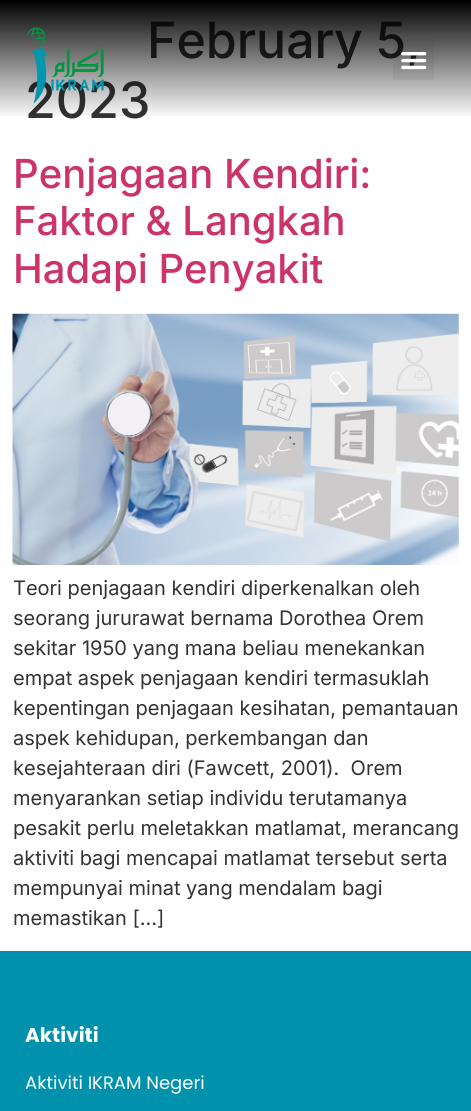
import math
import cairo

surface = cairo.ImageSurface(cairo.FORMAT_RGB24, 471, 1111)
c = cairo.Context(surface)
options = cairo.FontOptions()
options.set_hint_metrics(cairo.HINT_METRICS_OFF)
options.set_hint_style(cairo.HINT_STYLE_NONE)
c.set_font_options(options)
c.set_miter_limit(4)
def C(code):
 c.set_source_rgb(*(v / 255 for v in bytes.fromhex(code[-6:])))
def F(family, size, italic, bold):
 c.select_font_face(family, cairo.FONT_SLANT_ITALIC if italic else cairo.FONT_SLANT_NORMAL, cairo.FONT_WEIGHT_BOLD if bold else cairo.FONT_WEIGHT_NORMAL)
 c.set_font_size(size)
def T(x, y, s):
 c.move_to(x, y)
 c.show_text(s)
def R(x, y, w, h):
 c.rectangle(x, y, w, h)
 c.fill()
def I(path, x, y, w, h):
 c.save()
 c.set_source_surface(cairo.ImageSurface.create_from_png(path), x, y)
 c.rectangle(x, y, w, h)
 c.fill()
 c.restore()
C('ffffff')
c.paint()
F('Inter Medium',50,0,0)
C('333333')
T(147,58,'February 5,')
T(25,118,'2023')
gradient = cairo.LinearGradient(236,0,236,119)
gradient.add_color_stop_rgba(0,0,0,0,1)
gradient.add_color_stop_rgba(1,0,0,0,0)
c.set_source(gradient)
R(0,0,471,116)
I('1.png',27,27,77,77)
c.set_source_rgba(0,0,0,0.05)
R(393,39,41,41)
I('2.png',401,52,26,18)
F('Inter Medium',40,0,0)
C('cc3366')
T(13,188,'Penjagaan Kendiri:')
T(13,235,'Faktor & Langkah')
T(13,283,'Hadapi Penyakit')
I('3.png',12,313,447,252)
F('Inter',20,0,0)
C('333333')
T(13,595,'Teori penjagaan kendiri diperkenalkan oleh')
T(13,625,'seorang jururawat bernama Dorothea Orem')
T(13,655,'sekitar 1950 yang mana beliau menekankan')
T(13,685,'empat aspek penjagaan kendiri termasuklah')
T(13,715,'kepentingan penjagaan kesihatan, pemantauan')
T(13,745,'aspek kehidupan, perkembangan dan')
T(13,775,'kesejahteraan diri (Fawcett, 2001).  Orem')
T(13,805,'menyarankan setiap individu terutamanya')
T(13,835,'pesakit perlu meletakkan matlamat, merancang')
T(13,865,'aktiviti bagi mencapai matlamat tersebut serta')
T(13,895,'mempunyai minat yang mendalam bagi')
T(13,925,'memastikan […]')
C('0092ad')
R(0,951,471,160)
F('Poppins',20,0,1)
C('ffffff')
T(25,1042,'Aktiviti')
F('Poppins',18,0,0)
T(25,1089,'Aktiviti IKRAM Negeri')
surface.write_to_png('o.png')
